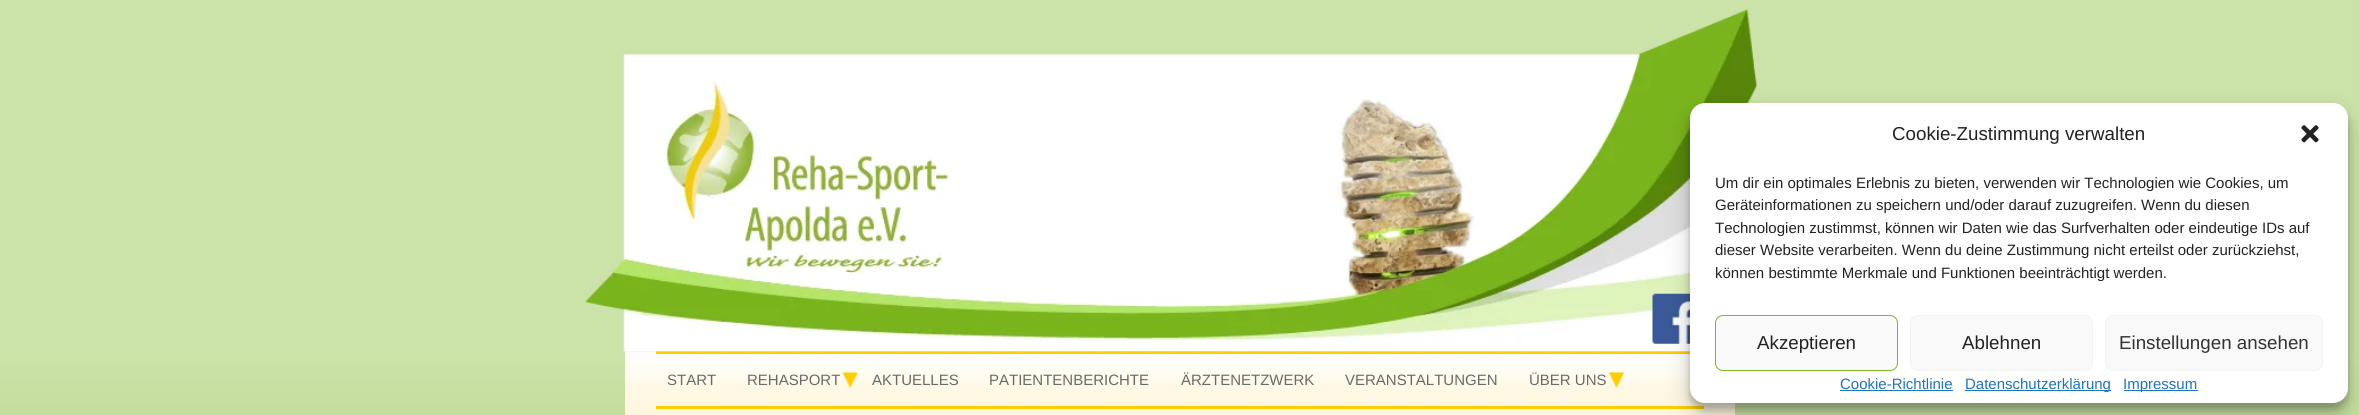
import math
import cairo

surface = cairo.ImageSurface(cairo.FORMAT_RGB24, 2359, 415)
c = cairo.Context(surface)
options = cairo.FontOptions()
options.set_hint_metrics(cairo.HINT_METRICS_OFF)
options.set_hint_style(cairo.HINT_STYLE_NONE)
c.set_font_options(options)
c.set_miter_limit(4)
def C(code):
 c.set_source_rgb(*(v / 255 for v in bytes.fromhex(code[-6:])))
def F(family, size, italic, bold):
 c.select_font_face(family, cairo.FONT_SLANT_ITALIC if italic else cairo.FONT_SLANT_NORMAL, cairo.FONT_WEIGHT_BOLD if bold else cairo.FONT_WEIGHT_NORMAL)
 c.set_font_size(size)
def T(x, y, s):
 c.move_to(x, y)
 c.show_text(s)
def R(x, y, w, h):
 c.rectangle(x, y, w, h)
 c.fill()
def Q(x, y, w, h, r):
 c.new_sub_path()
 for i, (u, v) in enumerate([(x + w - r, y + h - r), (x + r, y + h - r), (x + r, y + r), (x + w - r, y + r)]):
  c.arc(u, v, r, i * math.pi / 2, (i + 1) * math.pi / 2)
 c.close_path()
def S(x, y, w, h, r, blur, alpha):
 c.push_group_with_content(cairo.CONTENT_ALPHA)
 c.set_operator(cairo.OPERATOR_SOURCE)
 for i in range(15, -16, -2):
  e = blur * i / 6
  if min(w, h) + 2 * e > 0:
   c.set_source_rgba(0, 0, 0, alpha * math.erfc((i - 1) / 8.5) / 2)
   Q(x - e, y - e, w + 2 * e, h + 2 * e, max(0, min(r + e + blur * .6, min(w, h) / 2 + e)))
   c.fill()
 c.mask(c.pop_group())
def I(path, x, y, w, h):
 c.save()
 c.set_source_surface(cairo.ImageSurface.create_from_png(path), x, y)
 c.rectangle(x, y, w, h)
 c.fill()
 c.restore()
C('7eb626')
c.paint()
I('1.png',0,0,2359,415)
I('4.png',625,351,1110,64)
C('fdcd01')
R(656,351,1034,3)
I('2.png',585,9,1173,343)
I('3.png',1652,293,38,51)
R(656,406,1048,3)
F('Liberation Sans',15,0,0)
C('6a6a6a')
T(667,385,'START')
T(747,385,'REHASPORT')
I('5.png',842,372,16,16)
T(872,385,'AKTUELLES')
T(989,385,'PATIENTENBERICHTE')
T(1181,385,'ÄRZTENETZWERK')
T(1345,385,'VERANSTALTUNGEN')
T(1529,385,'ÜBER UNS')
I('6.png',1608,372,16,16)
C('000000')
S(1690,110,658,300,15,4,.23)
S(1690,115,658,300,15,12.5,.19)
C('ffffff')
Q(1690,103,658,300,15)
c.fill()
F('Liberation Sans',18.75,0,0)
C('222222')
T(1892,140,'Cookie-Zustimmung verwalten')
I('7.png',2301,125,18,18)
F('Liberation Sans',15,0,0)
T(1715,188,'Um dir ein optimales Erlebnis zu bieten, verwenden wir Technologien wie Cookies, um')
T(1715,210,'Geräteinformationen zu speichern und/oder darauf zuzugreifen. Wenn du diesen')
T(1715,233,'Technologien zustimmst, können wir Daten wie das Surfverhalten oder eindeutige IDs auf')
T(1715,255,'dieser Website verarbeiten. Wenn du deine Zustimmung nicht erteilst oder zurückziehst,')
T(1715,278,'können bestimmte Merkmale und Funktionen beeinträchtigt werden.')
C('f9f9f9')
Q(1715.5,315.5,182,55,7.5)
c.fill_preserve()
C('7eb626')
c.set_line_width(1)
c.stroke()
F('Liberation Sans',18.75,0,0)
C('222222')
T(1757,349,'Akzeptieren')
C('f9f9f9')
Q(1910.5,315.5,182,55,7.5)
c.fill_preserve()
C('f2f2f2')
c.stroke()
C('222222')
T(1962,349,'Ablehnen')
C('f9f9f9')
Q(2105.5,315.5,217,55,7.5)
c.fill_preserve()
C('f2f2f2')
c.stroke()
C('333333')
T(2119,349,'Einstellungen ansehen')
F('Liberation Sans',15,0,0)
C('1e73be')
T(1840,389,'Cookie-Richtlinie')
R(1840,390,113,1)
R(1965,390,146,1)
T(1965,389,'Datenschutzerklärung')
R(2124,390,74,1)
T(2123,389,'Impressum')
surface.write_to_png('o.png')
